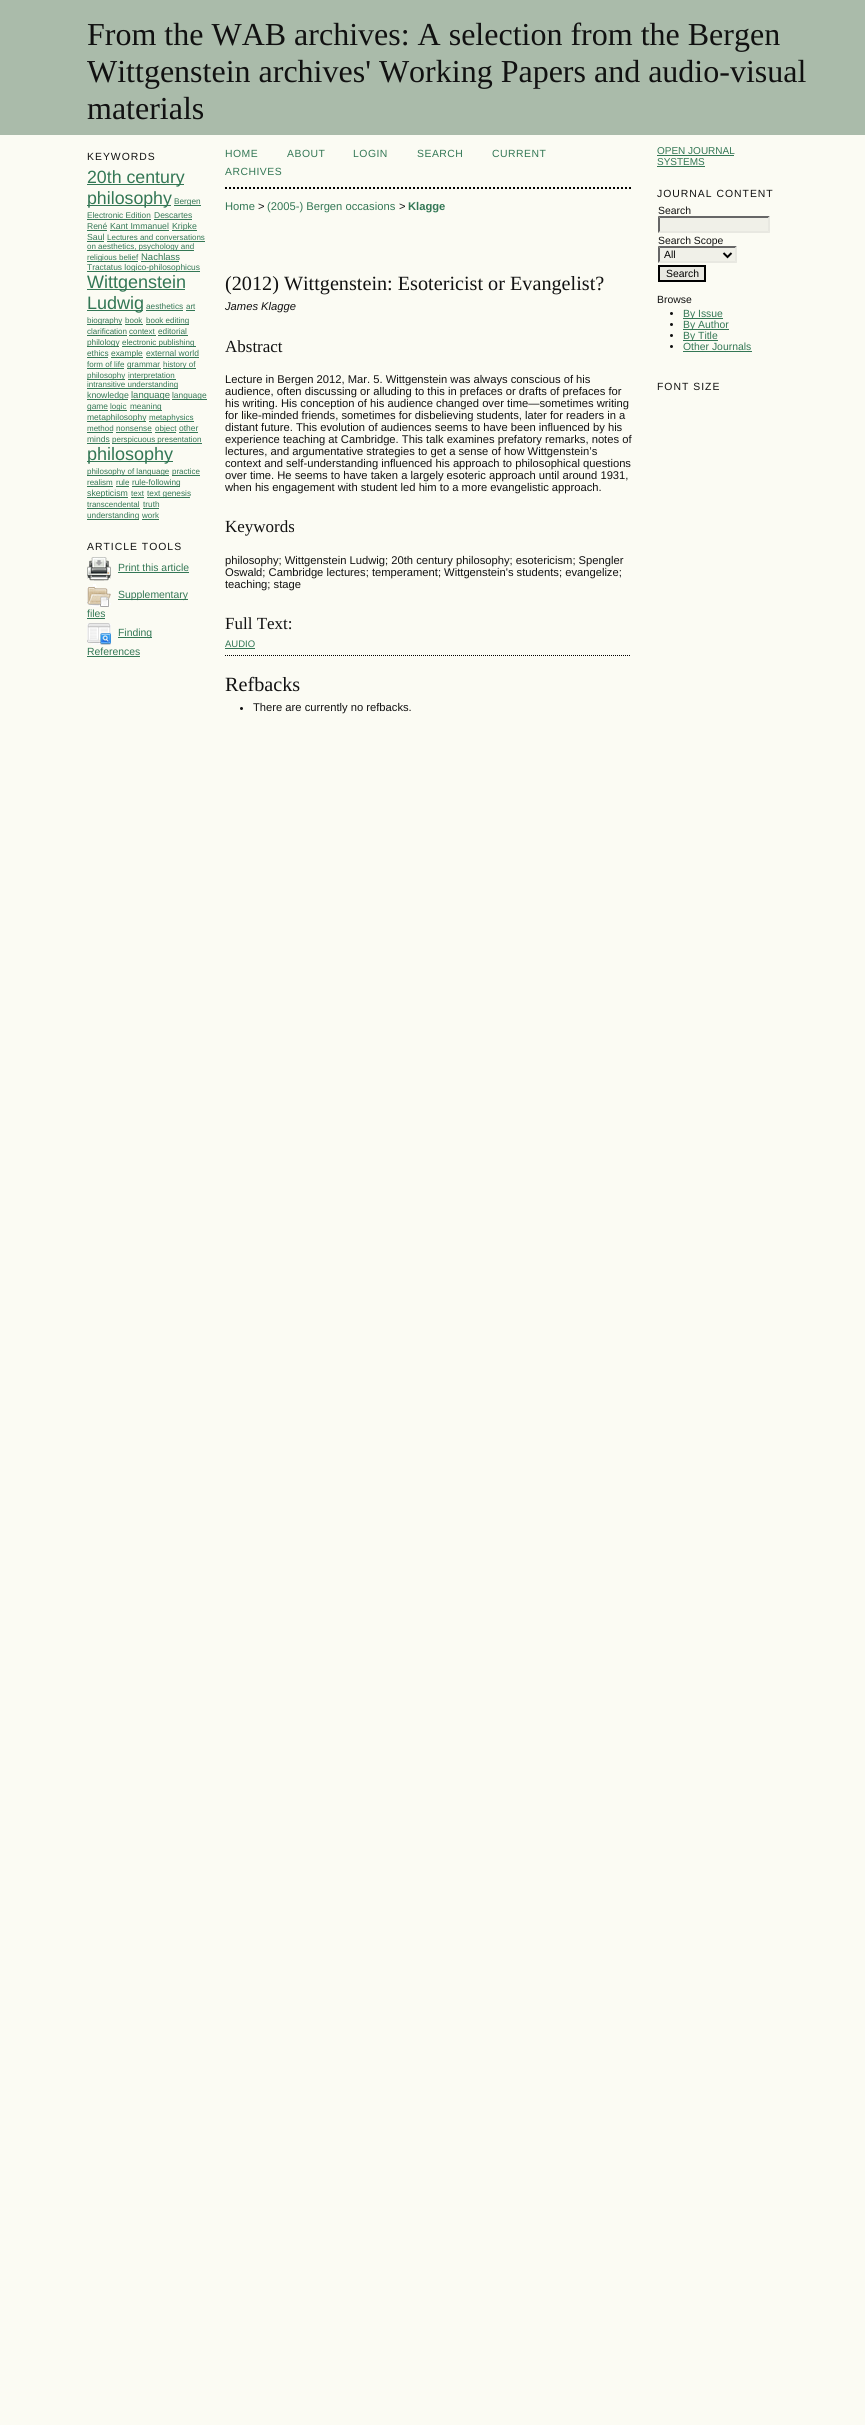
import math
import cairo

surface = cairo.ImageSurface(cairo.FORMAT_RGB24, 865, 2425)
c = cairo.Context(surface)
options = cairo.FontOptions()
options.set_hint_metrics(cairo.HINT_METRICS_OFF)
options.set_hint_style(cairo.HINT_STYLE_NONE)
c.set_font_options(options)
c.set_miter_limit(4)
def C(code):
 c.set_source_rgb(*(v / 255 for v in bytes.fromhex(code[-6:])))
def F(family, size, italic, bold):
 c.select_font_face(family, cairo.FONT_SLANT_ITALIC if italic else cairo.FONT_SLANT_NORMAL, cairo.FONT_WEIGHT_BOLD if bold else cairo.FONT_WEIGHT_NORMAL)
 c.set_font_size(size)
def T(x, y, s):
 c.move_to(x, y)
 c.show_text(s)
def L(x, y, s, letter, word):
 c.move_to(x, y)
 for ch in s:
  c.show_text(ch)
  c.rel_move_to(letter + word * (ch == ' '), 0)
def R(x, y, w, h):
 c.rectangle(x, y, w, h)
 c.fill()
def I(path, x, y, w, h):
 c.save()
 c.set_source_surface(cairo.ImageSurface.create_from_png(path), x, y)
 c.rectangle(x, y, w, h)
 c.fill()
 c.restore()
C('fbfbf3')
c.paint()
C('aabbaa')
R(0,0,865,135)
F('Liberation Serif',32,0,0)
C('111111')
T(87,45,'From the WAB archives: A selection from the Bergen')
T(87,82,'Wittgenstein archives\' Working Papers and audio-visual')
T(87,119,'materials')
F('Liberation Sans',10.4,0,0)
L(87,160,'KEYWORDS',1,0)
C('337755')
R(87,184,97,1)
F('Liberation Sans',17.75,0,0)
T(87,183,'20th century')
R(87,205,84,1)
T(87,204,'philosophy')
R(174,205,27,1)
F('Liberation Sans',8.25,0,0)
T(174,204,'Bergen')
T(87,218,'Electronic Edition')
R(87,219,64,1)
F('Liberation Sans',8.5,0,0)
T(154,218,'Descartes')
R(154,219,38,1)
T(87,229,'René')
R(87,230,20,1)
F('Liberation Sans',8.75,0,0)
T(110,229,'Kant Immanuel')
R(110,230,59,1)
R(172,230,25,1)
T(172,229,'Kripke')
T(87,240,'Saul')
R(87,241,17,1)
F('Liberation Sans',8,0,0)
T(107,240,'Lectures and conversations')
R(107,241,98,1)
R(87,250,107,1)
T(87,249,'on aesthetics, psychology and')
R(87,261,51,1)
T(87,260,'religious belief')
F('Liberation Sans',9.5,0,0)
T(141,260,'Nachlass')
R(141,261,38,1)
R(87,271,113,1)
F('Liberation Sans',8.4,0,0)
T(87,270,'Tractatus logico-philosophicus')
R(87,289,98,1)
F('Liberation Sans',18,0,0)
T(87,288,'Wittgenstein')
R(87,310,56,1)
T(87,309,'Ludwig')
F('Liberation Sans',8.25,0,0)
T(146,309,'aesthetics')
R(146,310,37,1)
F('Liberation Sans',8,0,0)
T(186,309,'art')
R(186,310,9,1)
R(87,324,35,1)
T(87,323,'biography')
T(125,323,'book')
R(125,324,18,1)
R(146,324,43,1)
T(146,323,'book editing')
T(87,334,'clarification')
R(87,335,40,1)
T(129,334,'context')
R(129,335,27,1)
F('Liberation Sans',8.25,0,0)
T(158,334,'editorial')
R(158,335,30,1)
R(87,346,32,1)
T(87,345,'philology')
R(122,346,74,1)
F('Liberation Sans',8,0,0)
T(122,345,'electronic publishing')
F('Liberation Sans',8.25,0,0)
T(87,356,'ethics')
R(87,357,21,1)
R(111,357,32,1)
F('Liberation Sans',8.4,0,0)
T(111,356,'example')
F('Liberation Sans',8.5,0,0)
T(146,356,'external world')
R(146,357,53,1)
F('Liberation Sans',8,0,0)
T(87,367,'form of life')
R(87,368,37,1)
R(127,368,34,1)
F('Liberation Sans',8.25,0,0)
T(127,367,'grammar')
R(163,368,33,1)
F('Liberation Sans',8,0,0)
T(163,367,'history of')
R(87,379,38,1)
T(87,378,'philosophy')
R(128,379,48,1)
T(128,378,'interpretation')
R(87,388,91,1)
T(87,387,'intransitive understanding')
R(87,399,41,1)
F('Liberation Sans',8.75,0,0)
T(87,398,'knowledge')
R(131,399,39,1)
F('Liberation Sans',9.5,0,0)
T(131,398,'language')
R(172,399,35,1)
F('Liberation Sans',8.4,0,0)
T(172,398,'language')
R(87,410,21,1)
T(87,409,'game')
R(110,410,17,1)
F('Liberation Sans',8,0,0)
T(110,409,'logic')
R(130,410,32,1)
F('Liberation Sans',8.25,0,0)
T(130,409,'meaning')
R(87,421,59,1)
F('Liberation Sans',8.5,0,0)
T(87,420,'metaphilosophy')
R(149,421,45,1)
F('Liberation Sans',8,0,0)
T(149,420,'metaphysics')
T(87,431,'method')
R(87,432,26,1)
F('Liberation Sans',8.25,0,0)
T(116,431,'nonsense')
R(116,432,36,1)
R(155,432,21,1)
F('Liberation Sans',8,0,0)
T(155,431,'object')
F('Liberation Sans',8.5,0,0)
T(179,431,'other')
R(179,432,19,1)
T(87,442,'minds')
R(87,443,23,1)
R(112,443,90,1)
F('Liberation Sans',8,0,0)
T(112,442,'perspicuous presentation')
R(87,461,86,1)
F('Liberation Sans',18,0,0)
T(87,460,'philosophy')
R(87,475,82,1)
F('Liberation Sans',8,0,0)
T(87,474,'philosophy of language')
R(172,475,28,1)
T(172,474,'practice')
T(87,485,'realism')
R(87,486,26,1)
T(116,485,'rule')
R(116,486,13,1)
R(132,486,48,1)
F('Liberation Sans',8.25,0,0)
T(132,485,'rule-following')
R(87,497,41,1)
F('Liberation Sans',8.75,0,0)
T(87,496,'skepticism')
F('Liberation Sans',8,0,0)
T(131,496,'text')
R(131,497,13,1)
R(147,497,43,1)
F('Liberation Sans',8.25,0,0)
T(147,496,'text genesis')
F('Liberation Sans',8,0,0)
T(87,507,'transcendental')
R(87,508,53,1)
F('Liberation Sans',8.25,0,0)
T(143,507,'truth')
R(143,508,16,1)
R(87,519,52,1)
T(87,518,'understanding')
F('Liberation Sans',8,0,0)
T(142,518,'work')
R(142,519,17,1)
F('Liberation Sans',10.4,0,0)
C('111111')
L(87,550,'ARTICLE TOOLS',1,0)
I('1.png',87,557,24,24)
C('337755')
T(118,571,'Print this article')
R(118,572,71,1)
I('2.png',87,584,24,23)
R(118,599,70,1)
T(118,598,'Supplementary')
T(87,617,'files')
R(87,618,18,1)
I('3.png',87,623,24,22)
R(118,637,34,1)
T(118,636,'Finding')
T(87,655,'References')
R(87,656,53,1)
F('Liberation Sans',10,0,0)
T(657,154,'OPEN JOURNAL')
R(657,155,77,1)
T(657,165,'SYSTEMS')
R(657,166,48,1)
F('Liberation Sans',10.4,0,0)
C('111111')
L(657,197,'JOURNAL CONTENT',1,0)
T(658,214,'Search')
C('f0f0e8')
R(658,216,112,17)
C('666666')
c.new_path()
c.move_to(658,216)
c.line_to(770,216)
c.line_to(768,218)
c.line_to(660,218)
c.close_path()
c.fill()
C('e8e8e1')
c.new_path()
c.move_to(770,216)
c.line_to(770,233)
c.line_to(768,231)
c.line_to(768,218)
c.close_path()
c.fill()
c.new_path()
c.move_to(770,233)
c.line_to(658,233)
c.line_to(660,231)
c.line_to(768,231)
c.close_path()
c.fill()
C('666666')
c.new_path()
c.move_to(658,233)
c.line_to(658,216)
c.line_to(660,218)
c.line_to(660,231)
c.close_path()
c.fill()
C('111111')
T(658,244,'Search Scope')
C('f0f0e8')
R(658,246,79,17)
C('666666')
c.new_path()
c.move_to(658,246)
c.line_to(737,246)
c.line_to(735,248)
c.line_to(660,248)
c.close_path()
c.fill()
C('e8e8e1')
c.new_path()
c.move_to(737,246)
c.line_to(737,263)
c.line_to(735,261)
c.line_to(735,248)
c.close_path()
c.fill()
c.new_path()
c.move_to(737,263)
c.line_to(658,263)
c.line_to(660,261)
c.line_to(735,261)
c.close_path()
c.fill()
C('666666')
c.new_path()
c.move_to(658,263)
c.line_to(658,246)
c.line_to(660,248)
c.line_to(660,261)
c.close_path()
c.fill()
c.new_path()
c.move_to(723.5,253)
c.line_to(727.5,257)
c.line_to(731.5,253)
C('000000')
c.stroke()
T(664,258,'All')
C('e8e8e1')
c.rectangle(659,266,46,15)
c.fill_preserve()
C('000000')
c.stroke()
T(666,277,'Search')
C('111111')
T(657,303,'Browse')
c.new_path()
c.arc(671.5,313.5,1.5,0,2 * math.pi)
c.fill()
C('337755')
R(683,318,40,1)
T(683,317,'By Issue')
C('111111')
c.new_path()
c.arc(671.5,324.5,1.5,0,2 * math.pi)
c.fill()
C('337755')
R(683,329,46,1)
T(683,328,'By Author')
C('111111')
c.new_path()
c.arc(671.5,335.5,1.5,0,2 * math.pi)
c.fill()
C('337755')
R(683,340,35,1)
T(683,339,'By Title')
C('111111')
c.new_path()
c.arc(671.5,346.5,1.5,0,2 * math.pi)
c.fill()
C('337755')
T(683,350,'Other Journals')
R(683,351,69,1)
C('111111')
L(657,390,'FONT SIZE',1,0)
c.new_path()
c.move_to(225,188)
c.line_to(631,188)
C('000000')
c.set_dash([2,2])
c.stroke()
C('337755')
L(225,157,'HOME',.5,0)
L(287,157,'ABOUT',.5,0)
L(353,157,'LOGIN',.5,0)
L(417,157,'SEARCH',.5,0)
L(492,157,'CURRENT',.5,0)
L(225,175,'ARCHIVES',.5,0)
F('Liberation Sans',11.2,0,0)
T(225,210,'Home')
C('111111')
T(258,210,'>')
C('337755')
T(267,210,'(2005-) Bergen occasions')
C('111111')
T(399,210,'>')
F('Liberation Sans',11.2,0,1)
C('337755')
T(408,210,'Klagge')
F('Liberation Serif',20.2,0,0)
C('111111')
T(225,290,'(2012) Wittgenstein: Esotericist or Evangelist?')
F('Liberation Sans',11.2,1,0)
T(225,310,'James Klagge')
F('Liberation Serif',17,0,0)
T(225,352,'Abstract')
F('Liberation Sans',11.2,0,0)
T(225,383,'Lecture in Bergen 2012, Mar. 5. Wittgenstein was always conscious of his')
T(225,395,'audience, often discussing or alluding to this in prefaces or drafts of prefaces for')
T(225,407,'his writing. His conception of his audience changed over time—sometimes writing')
T(225,419,'for like-minded friends, sometimes for disbelieving students, later for readers in a')
T(225,431,'distant future. This evolution of audiences seems to have been influenced by his')
T(225,443,'experience teaching at Cambridge. This talk examines prefatory remarks, notes of')
T(225,455,'lectures, and argumentative strategies to get a sense of how Wittgenstein’s')
T(225,467,'context and self-understanding influenced his approach to philosophical questions')
T(225,479,'over time. He seems to have taken a largely esoteric approach until around 1931,')
T(225,491,'when his engagement with student led him to a more evangelistic approach.')
F('Liberation Serif',17,0,0)
T(225,532,'Keywords')
F('Liberation Sans',11.2,0,0)
T(225,564,'philosophy; Wittgenstein Ludwig; 20th century philosophy; esotericism; Spengler')
T(225,576,'Oswald; Cambridge lectures; temperament; Wittgenstein\'s students; evangelize;')
T(225,588,'teaching; stage')
F('Liberation Serif',17,0,0)
T(225,629,'Full Text:')
F('Liberation Sans',9.5,0,0)
C('337755')
T(225,647,'AUDIO')
R(225,648,30,1)
c.new_path()
c.move_to(225,655.5)
c.line_to(631,655.5)
C('000000')
c.set_line_width(1)
c.set_dash([1,1])
c.stroke()
F('Liberation Serif',20.2,0,0)
C('111111')
T(225,691,'Refbacks')
c.new_path()
c.arc(241.5,708.5,1.5,0,2 * math.pi)
c.fill()
F('Liberation Sans',11.2,0,0)
T(253,711,'There are currently no refbacks.')
surface.write_to_png('o.png')
